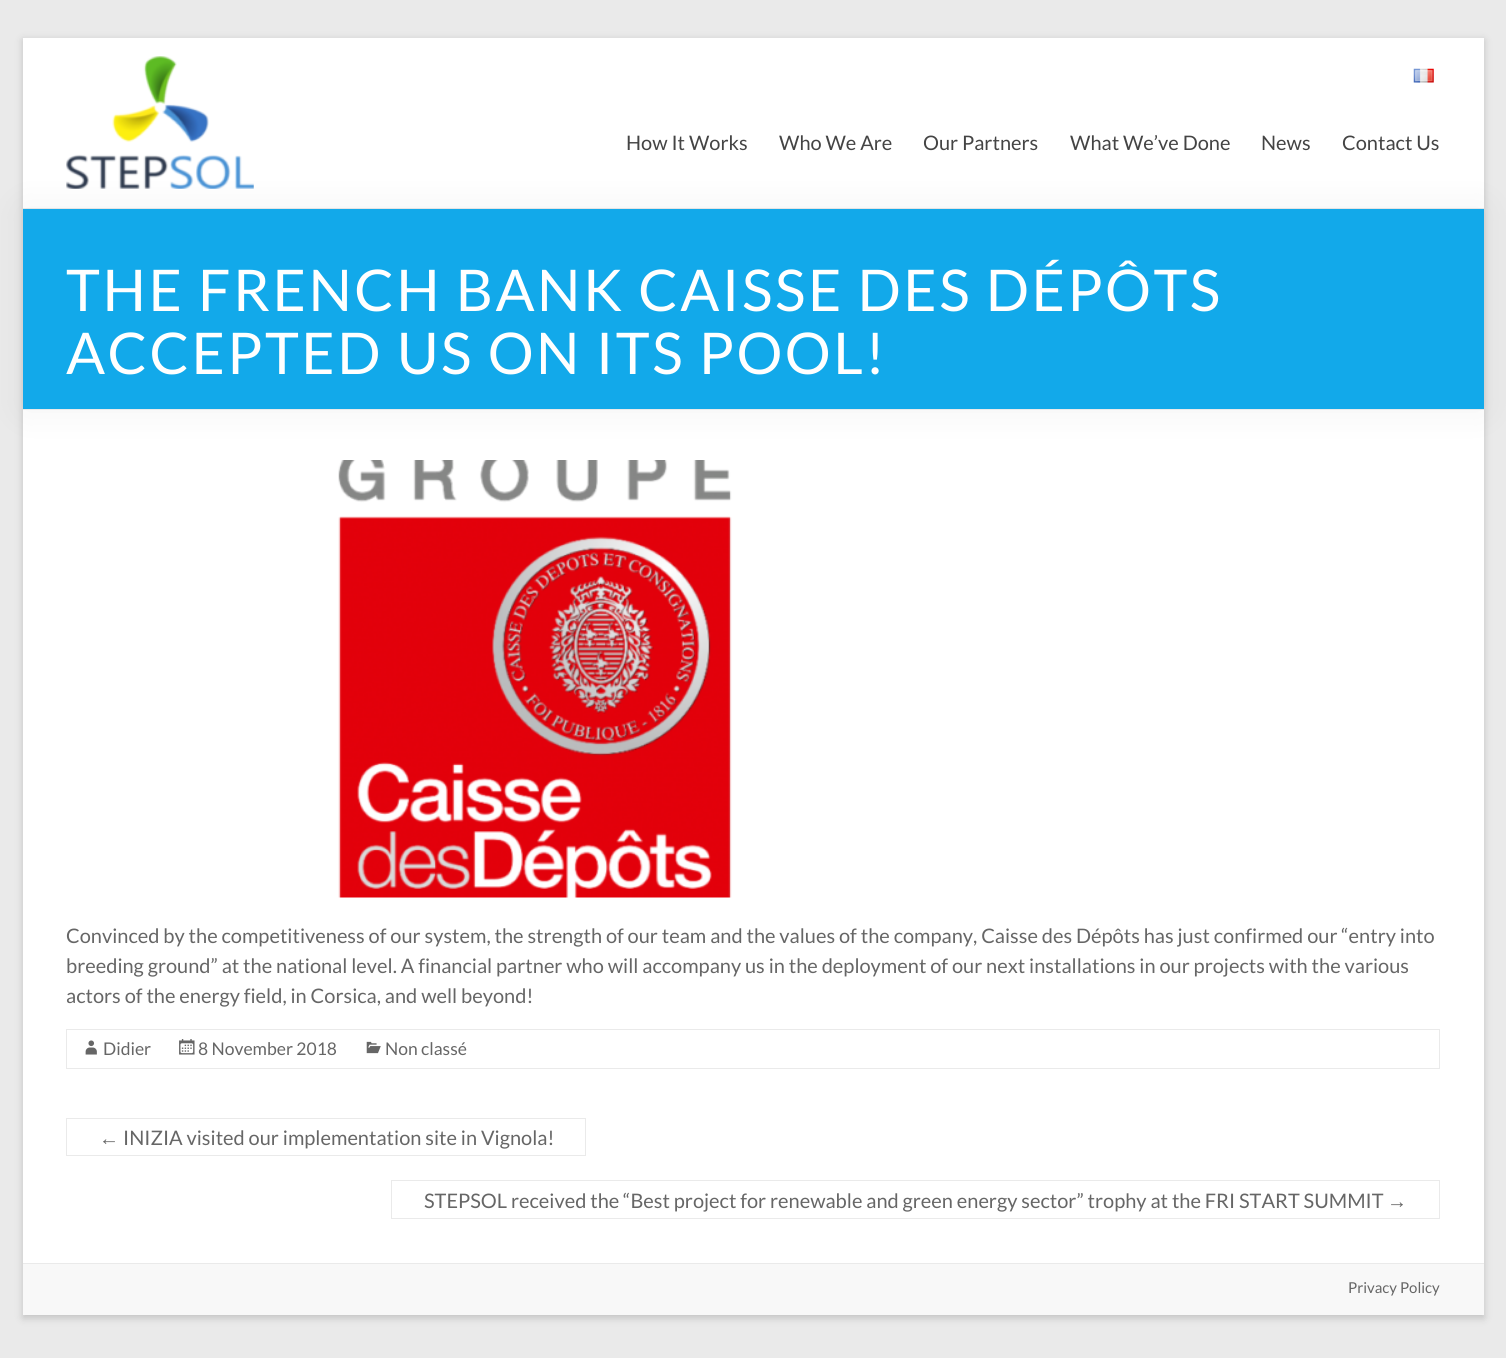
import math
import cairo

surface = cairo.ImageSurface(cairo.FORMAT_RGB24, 1506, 1358)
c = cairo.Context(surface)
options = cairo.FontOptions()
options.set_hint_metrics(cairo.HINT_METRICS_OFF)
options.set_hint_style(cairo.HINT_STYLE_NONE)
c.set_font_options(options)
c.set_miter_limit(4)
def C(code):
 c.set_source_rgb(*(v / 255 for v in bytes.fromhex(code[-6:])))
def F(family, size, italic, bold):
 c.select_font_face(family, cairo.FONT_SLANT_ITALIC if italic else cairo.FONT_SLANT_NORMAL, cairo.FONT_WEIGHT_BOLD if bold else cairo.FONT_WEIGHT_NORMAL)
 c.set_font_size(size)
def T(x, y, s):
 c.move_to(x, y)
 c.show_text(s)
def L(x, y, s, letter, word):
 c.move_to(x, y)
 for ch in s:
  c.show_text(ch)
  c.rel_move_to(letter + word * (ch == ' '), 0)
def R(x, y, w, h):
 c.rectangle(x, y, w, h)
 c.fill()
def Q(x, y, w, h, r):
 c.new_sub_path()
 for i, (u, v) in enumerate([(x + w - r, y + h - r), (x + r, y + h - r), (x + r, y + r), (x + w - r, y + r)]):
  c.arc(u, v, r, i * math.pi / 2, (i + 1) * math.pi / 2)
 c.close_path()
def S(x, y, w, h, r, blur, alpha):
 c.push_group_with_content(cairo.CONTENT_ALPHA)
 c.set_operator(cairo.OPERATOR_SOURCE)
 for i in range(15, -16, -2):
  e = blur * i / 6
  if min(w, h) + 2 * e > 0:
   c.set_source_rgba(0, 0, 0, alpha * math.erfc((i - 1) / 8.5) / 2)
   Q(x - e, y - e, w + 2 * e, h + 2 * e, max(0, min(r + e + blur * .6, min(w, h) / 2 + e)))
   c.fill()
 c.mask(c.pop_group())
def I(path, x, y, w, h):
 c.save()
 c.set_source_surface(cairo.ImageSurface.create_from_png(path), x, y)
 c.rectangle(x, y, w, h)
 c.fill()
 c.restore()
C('eaeaea')
c.paint()
C('646464')
S(23,40,1461,1278,0,4,.3)
C('ffffff')
R(23,38,1461,1225)
C('eaeaea')
R(23,208,1461,1)
C('000000')
S(23,209,1461,201,0,19,.05)
I('1.png',66,56,188,133)
I('2.png',1413,68,21,15)
F('Lato',20,0,0)
C('444444')
T(626,150,'How It Works')
T(779,150,'Who We Are')
T(923,150,'Our Partners')
T(1070,150,'What We’ve Done')
T(1261,150,'News')
T(1342,150,'Contact Us')
C('12a9ea')
R(23,209,1461,200)
C('eaeaea')
R(23,409,1461,1)
F('Lato',57.5,0,0)
C('ffffff')
L(66,311,'THE FRENCH BANK CAISSE DES DÉPÔTS',2.5,0)
L(66,374,'ACCEPTED US ON ITS POOL!',2.5,0)
I('3.png',338,460,394,438)
F('Lato',20,0,0)
C('666666')
T(66,943,'Convinced by the competitiveness of our system, the strength of our team and the values of the company, Caisse des Dépôts has just confirmed our “entry into')
T(66,973,'breeding ground” at the national level. A financial partner who will accompany us in the deployment of our next installations in our projects with the various')
T(66,1003,'actors of the energy field, in Corsica, and well beyond!')
c.rectangle(66.5,1029.5,1373,39)
C('eaeaea')
c.set_line_width(1)
c.stroke()
I('4.png',85,1040,12,15)
F('Lato',17.5,0,0)
C('666666')
T(103,1055,'Didier')
I('5.png',179,1039,16,16)
T(198,1055,'8 November 2018')
I('6.png',366,1041,15,13)
T(385,1055,'Non classé')
F('Liberation Sans',20,0,0)
T(99,1145,'←')
C('eaeaea')
R(66,1155,53,1)
R(66,1118,520,1)
R(66,1118,1,38)
R(585,1118,1,38)
R(119,1155,467,1)
F('Lato',20,0,0)
C('666666')
T(123,1145,'INIZIA visited our implementation site in Vignola!')
T(424,1208,'STEPSOL received the “Best project for renewable and green energy sector” trophy at the FRI START SUMMIT')
C('eaeaea')
R(391,1180,1049,1)
R(391,1218,997,1)
R(391,1180,1,39)
F('Liberation Sans',20,0,0)
C('666666')
T(1387,1208,'→')
C('eaeaea')
R(1439,1180,1,39)
R(1388,1218,52,1)
C('f8f8f8')
R(23,1264,1461,51)
C('eaeaea')
R(23,1263,1461,1)
F('Lato',15,0,0)
C('666666')
T(1348,1293,'Privacy Policy')
surface.write_to_png('o.png')
